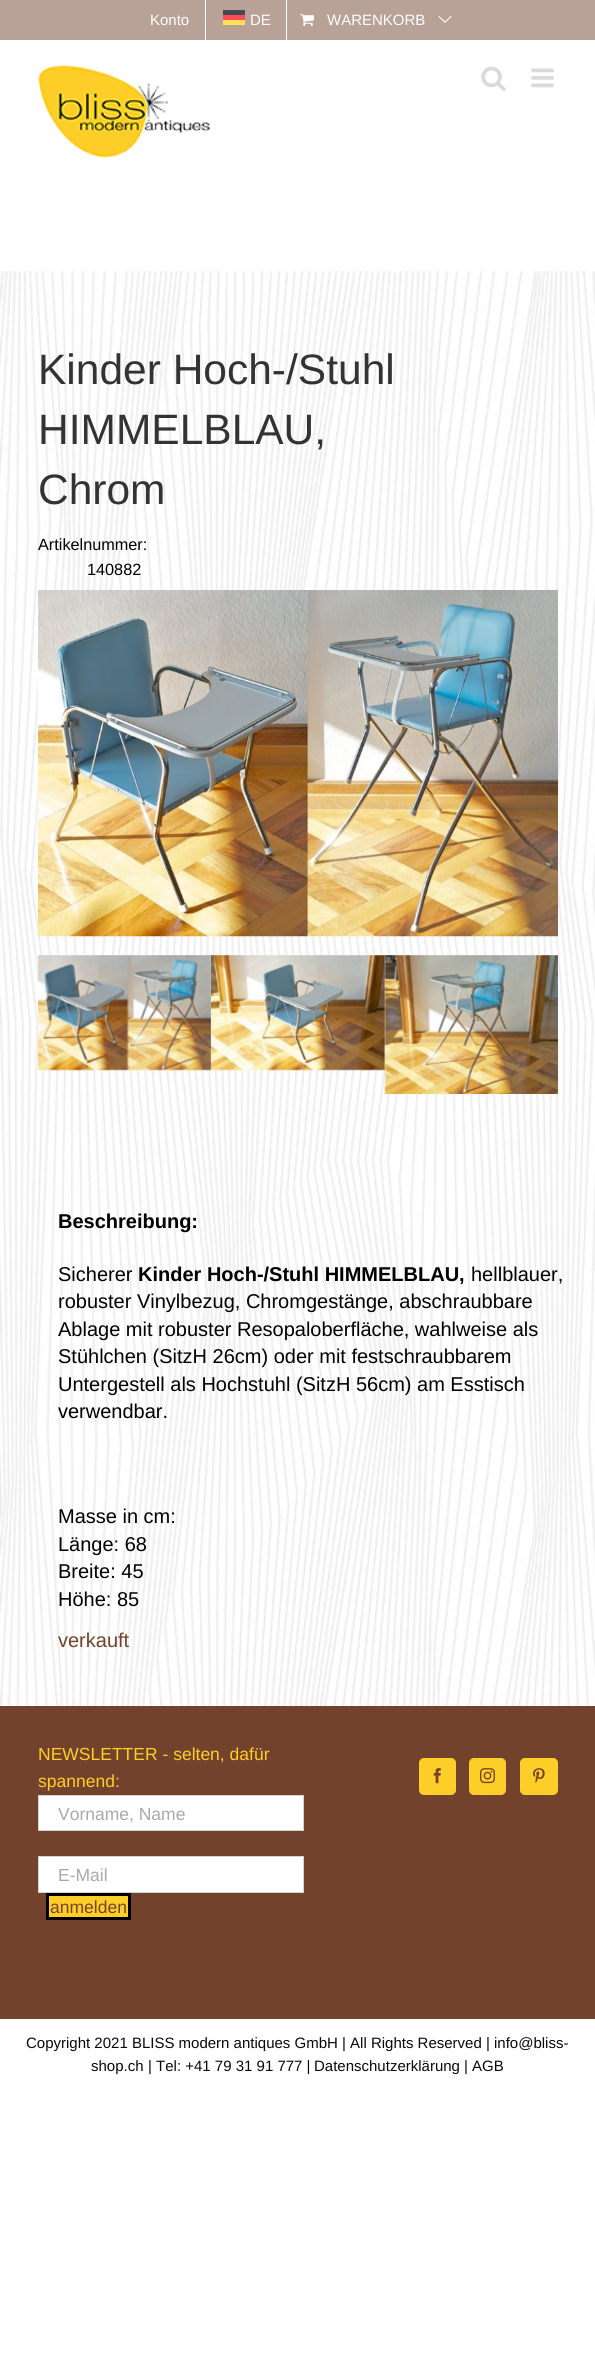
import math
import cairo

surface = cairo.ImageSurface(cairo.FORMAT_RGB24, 595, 2373)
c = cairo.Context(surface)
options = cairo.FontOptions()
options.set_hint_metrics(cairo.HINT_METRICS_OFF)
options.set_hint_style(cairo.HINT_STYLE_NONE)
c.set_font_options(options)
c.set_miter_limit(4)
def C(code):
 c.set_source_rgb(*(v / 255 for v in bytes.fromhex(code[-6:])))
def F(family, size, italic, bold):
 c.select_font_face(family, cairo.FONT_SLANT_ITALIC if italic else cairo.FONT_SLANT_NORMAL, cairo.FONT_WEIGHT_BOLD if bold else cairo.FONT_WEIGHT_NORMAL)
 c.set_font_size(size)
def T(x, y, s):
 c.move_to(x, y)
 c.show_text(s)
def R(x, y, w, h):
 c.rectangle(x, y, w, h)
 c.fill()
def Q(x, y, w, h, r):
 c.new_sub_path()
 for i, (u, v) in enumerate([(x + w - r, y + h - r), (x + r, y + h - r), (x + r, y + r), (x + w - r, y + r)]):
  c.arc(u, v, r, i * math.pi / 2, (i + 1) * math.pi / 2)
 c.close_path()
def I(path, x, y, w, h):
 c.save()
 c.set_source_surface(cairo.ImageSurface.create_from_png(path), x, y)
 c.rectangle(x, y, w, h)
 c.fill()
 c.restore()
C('ffffff')
c.paint()
C('b8a196')
R(0,0,595,40)
F('Liberation Sans',15,0,0)
C('ffffff')
T(150,25,'Konto')
R(205,0,1,40)
C('464655')
R(223,10,22,5)
C('ff4b55')
R(223,15,22,5)
C('ffffff')
T(250,25,'DE')
C('ffe15a')
R(223,20,22,5)
C('ffffff')
R(286,0,1,40)
I('1.png',300,14,14,12)
T(327,25,'WARENKORB')
I('2.png',438,16,14,7)
I('3.png',37,65,173,93)
I('4.png',481,66,25,25)
I('5.png',531,68,23,20)
I('6.png',0,271,595,1435)
F('Liberation Sans',42.5,0,0)
C('333333')
T(38,384,'Kinder Hoch-/Stuhl')
T(38,444,'HIMMELBLAU,')
T(38,504,'Chrom')
F('Liberation Sans',16.25,0,0)
C('000000')
T(38,550,'Artikelnummer:')
T(87,575,'140882')
I('7.png',38,590,520,347)
I('8.png',38,955,174,116)
I('9.png',211,955,175,116)
I('10.png',384,955,174,139)
F('Liberation Sans',20,0,1)
T(58,1228,'Beschreibung:')
F('Liberation Sans',20,0,0)
T(58,1281,'Sicherer')
F('Liberation Sans',20,0,1)
T(138,1281,'Kinder Hoch-/Stuhl HIMMELBLAU,')
F('Liberation Sans',20,0,0)
T(471,1281,'hellblauer,')
T(58,1308,'robuster Vinylbezug, Chromgestänge, abschraubbare')
T(58,1336,'Ablage mit robuster Resopaloberfläche, wahlweise als')
T(58,1363,'Stühlchen (SitzH 26cm) oder mit festschraubbarem')
T(58,1391,'Untergestell als Hochstuhl (SitzH 56cm) am Esstisch')
T(58,1418,'verwendbar.')
T(58,1523,'Masse in cm:')
T(58,1551,'Länge: 68')
T(58,1578,'Breite: 45')
T(58,1606,'Höhe: 85')
C('71432c')
T(58,1647,'verkauft')
C('72422c')
R(0,1706,595,313)
F('Liberation Sans',17.5,0,0)
C('fece28')
T(38,1760,'NEWSLETTER - selten, dafür')
T(38,1787,'spannend:')
C('ffffff')
c.rectangle(38.5,1795.5,265,35)
c.fill_preserve()
C('d2d2d2')
c.set_line_width(1)
c.stroke()
C('aaa9a9')
T(58,1820,'Vorname, Name')
C('ffffff')
c.rectangle(38.5,1856.5,265,36)
c.fill_preserve()
C('d2d2d2')
c.stroke()
C('aaa9a9')
T(58,1881,'E-Mail')
C('fece28')
c.rectangle(47.5,1894.5,82,24)
c.fill_preserve()
C('000000')
c.set_line_width(3)
c.stroke()
C('71432c')
T(50,1913,'anmelden')
C('fece28')
Q(419.5,1758.5,36,36,4.5)
c.fill_preserve()
c.set_line_width(1)
c.stroke()
I('11.png',433,1768,8,16)
Q(469.5,1758.5,36,36,4.5)
c.fill_preserve()
c.stroke()
I('12.png',480,1768,15,16)
Q(520.5,1758.5,37,36,4.5)
c.fill_preserve()
c.stroke()
I('13.png',533,1768,12,15)
F('Liberation Sans',15,0,0)
C('0a0909')
T(26,2048,'Copyright 2021 BLISS modern antiques GmbH | All Rights Reserved |')
T(494,2048,'info@bliss-')
T(91,2071,'shop.ch')
T(148,2071,'| Tel: +41 79 31 91 777 |')
T(314,2071,'Datenschutzerklärung')
T(464,2071,'|')
T(472,2071,'AGB')
surface.write_to_png('o.png')
